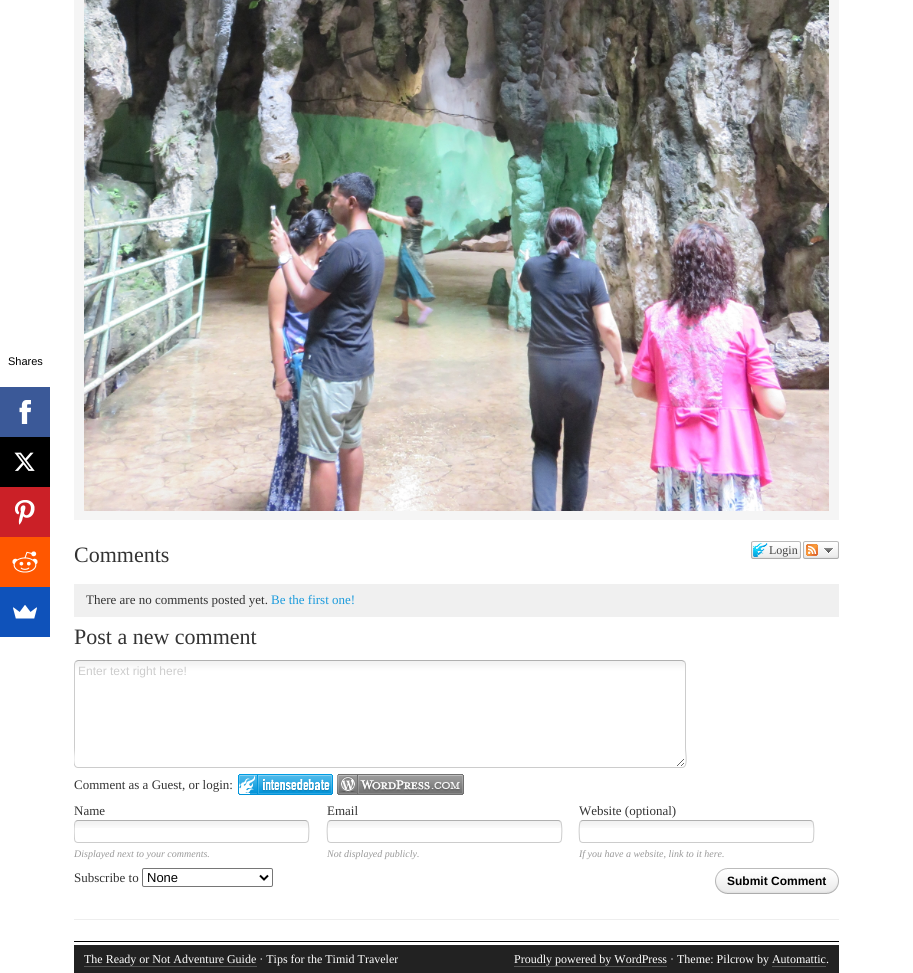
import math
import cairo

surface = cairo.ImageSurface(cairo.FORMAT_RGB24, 913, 973)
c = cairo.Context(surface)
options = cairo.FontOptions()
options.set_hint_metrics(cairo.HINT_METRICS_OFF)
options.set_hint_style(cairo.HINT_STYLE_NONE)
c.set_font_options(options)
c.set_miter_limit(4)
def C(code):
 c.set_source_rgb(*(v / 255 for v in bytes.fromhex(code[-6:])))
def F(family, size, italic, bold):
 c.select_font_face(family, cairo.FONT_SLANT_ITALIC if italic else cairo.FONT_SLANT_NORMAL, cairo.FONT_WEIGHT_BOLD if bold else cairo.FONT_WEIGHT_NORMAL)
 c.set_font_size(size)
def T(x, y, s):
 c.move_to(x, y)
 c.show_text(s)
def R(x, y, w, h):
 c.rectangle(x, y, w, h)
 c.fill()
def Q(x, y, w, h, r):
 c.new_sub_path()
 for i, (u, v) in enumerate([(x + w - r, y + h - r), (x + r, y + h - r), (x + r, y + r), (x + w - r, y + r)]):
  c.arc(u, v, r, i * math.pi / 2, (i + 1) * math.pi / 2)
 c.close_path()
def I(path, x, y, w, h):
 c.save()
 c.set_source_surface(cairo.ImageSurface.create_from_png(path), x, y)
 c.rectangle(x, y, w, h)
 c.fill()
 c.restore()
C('ffffff')
c.paint()
F('Liberation Sans',11,0,0)
C('000000')
T(8,365,'Shares')
C('3b5998')
R(0,387,50,50)
I('1.png',19,400,12,24)
C('000000')
R(0,437,50,50)
I('2.png',14,452,21,19)
C('cb2027')
R(0,487,50,50)
I('3.png',15,500,20,25)
C('ff5700')
R(0,537,50,50)
I('4.png',12,551,26,22)
C('0f52ba')
R(0,587,50,50)
I('5.png',13,605,24,14)
C('f5f5f5')
R(74,0,765,520)
I('6.png',84,0,745,511)
F('Liberation Serif',22,0,0)
C('333333')
T(74,562,'Comments')
I('7.png',751,541,47,18)
F('Liberation Serif',12,0,0)
C('444444')
T(769,554,'Login')
I('8.png',798,541,3,18)
I('9.png',803,541,36,18)
C('f0f0f0')
R(74,584,765,33)
F('Liberation Serif',13,0,0)
C('333333')
T(86,604,'There are no comments posted yet.')
C('1c9bdc')
T(271,604,'Be the first one!')
F('Liberation Serif',22,0,0)
C('333333')
T(74,644,'Post a new comment')
I('10.png',75,661,611,105)
c.new_path()
c.move_to(75.5,661.5)
c.line_to(78,660.5)
c.line_to(682,660.5)
c.line_to(684.5,661.5)
C('b0b0b0')
c.set_line_width(1)
c.stroke()
c.save()
c.rectangle(74,660,765,112)
c.clip()
c.new_path()
c.move_to(684.5,661.5)
c.line_to(685.5,664)
c.line_to(685.5,747.5)
c.curve_to(685.5,754,688.5,767.5,682,767.5)
c.line_to(78,767.5)
c.curve_to(71.5,767.5,74.5,754,74.5,747.5)
c.line_to(74.5,664)
c.line_to(75.5,661.5)
C('cccccc')
c.stroke()
c.restore()
F('Liberation Sans',12,0,0)
C('cccccc')
T(78,675,'Enter text right here!')
F('Liberation Serif',13,0,0)
C('333333')
T(74,789,'Comment as a Guest, or login:')
I('11.png',238,774,95,21)
I('12.png',337,774,127,21)
T(74,815,'Name')
T(327,815,'Email')
T(579,815,'Website (optional)')
I('13.png',75,821,234,7)
c.new_path()
c.move_to(75.5,821.5)
c.curve_to(76,821,77,820.5,78,820.5)
c.line_to(305,820.5)
c.curve_to(306,820.5,307,821,307.5,821.5)
C('b0b0b0')
c.stroke()
c.save()
c.rectangle(74,0,765,941)
c.clip()
c.new_path()
c.move_to(307.5,821.5)
c.curve_to(309.5,823.5,309,839,308,841)
c.curve_to(307.5,842,306,842.5,305,842.5)
c.line_to(78,842.5)
c.curve_to(77,842.5,75.5,842,75,841)
c.curve_to(74,839,73.5,823.5,75.5,821.5)
C('cccccc')
c.stroke()
c.restore()
F('Liberation Serif',10,1,0)
C('999999')
T(74,857,'Displayed next to your comments.')
I('13.png',328,821,234,7)
c.new_path()
c.move_to(328.5,821.5)
c.curve_to(329,821,330,820.5,331,820.5)
c.line_to(558,820.5)
c.curve_to(559,820.5,560,821,560.5,821.5)
C('b0b0b0')
c.stroke()
c.new_path()
c.move_to(560.5,821.5)
c.curve_to(562.5,823.5,562,839,561,841)
c.curve_to(560.5,842,559,842.5,558,842.5)
c.line_to(331,842.5)
c.curve_to(330,842.5,328.5,842,328,841)
c.curve_to(327,839,326.5,823.5,328.5,821.5)
C('cccccc')
c.stroke()
C('999999')
T(327,857,'Not displayed publicly.')
I('13.png',580,821,234,7)
c.new_path()
c.move_to(580.5,821.5)
c.curve_to(581,821,582,820.5,583,820.5)
c.line_to(810,820.5)
c.curve_to(811,820.5,812,821,812.5,821.5)
C('b0b0b0')
c.stroke()
c.new_path()
c.move_to(812.5,821.5)
c.curve_to(814.5,823.5,814,839,813,841)
c.curve_to(812.5,842,811,842.5,810,842.5)
c.line_to(583,842.5)
c.curve_to(582,842.5,580.5,842,580,841)
c.curve_to(579,839,578.5,823.5,580.5,821.5)
C('cccccc')
c.stroke()
C('999999')
T(579,857,'If you have a website, link to it here.')
F('Liberation Serif',13,0,0)
C('333333')
T(74,882,'Subscribe to')
Q(142.5,868.5,130,18,1.5)
C('767676')
c.stroke()
c.new_path()
c.move_to(260,875.5)
c.line_to(264,879.5)
c.line_to(268,875.5)
C('000000')
c.set_line_width(2)
c.stroke()
F('Liberation Sans',13,0,0)
T(147,882,'None')
I('14.png',715,868,12,26)
I('15.png',727,868,112,26)
F('Liberation Sans',12,0,1)
T(727,885,'Submit Comment')
C('eeeeee')
R(74,919,765,1)
C('000000')
R(74,941,765,1)
C('222222')
R(74,945,765,28)
F('Liberation Serif',12,0,0)
C('ffffff')
T(84,963,'The Ready or Not Adventure Guide · Tips for the Timid Traveler')
C('555555')
R(84,966,173,1)
C('ffffff')
T(514,963,'Proudly powered by WordPress · Theme: Pilcrow by Automattic.')
C('555555')
R(514,966,153,1)
R(772,966,54,1)
surface.write_to_png('o.png')
